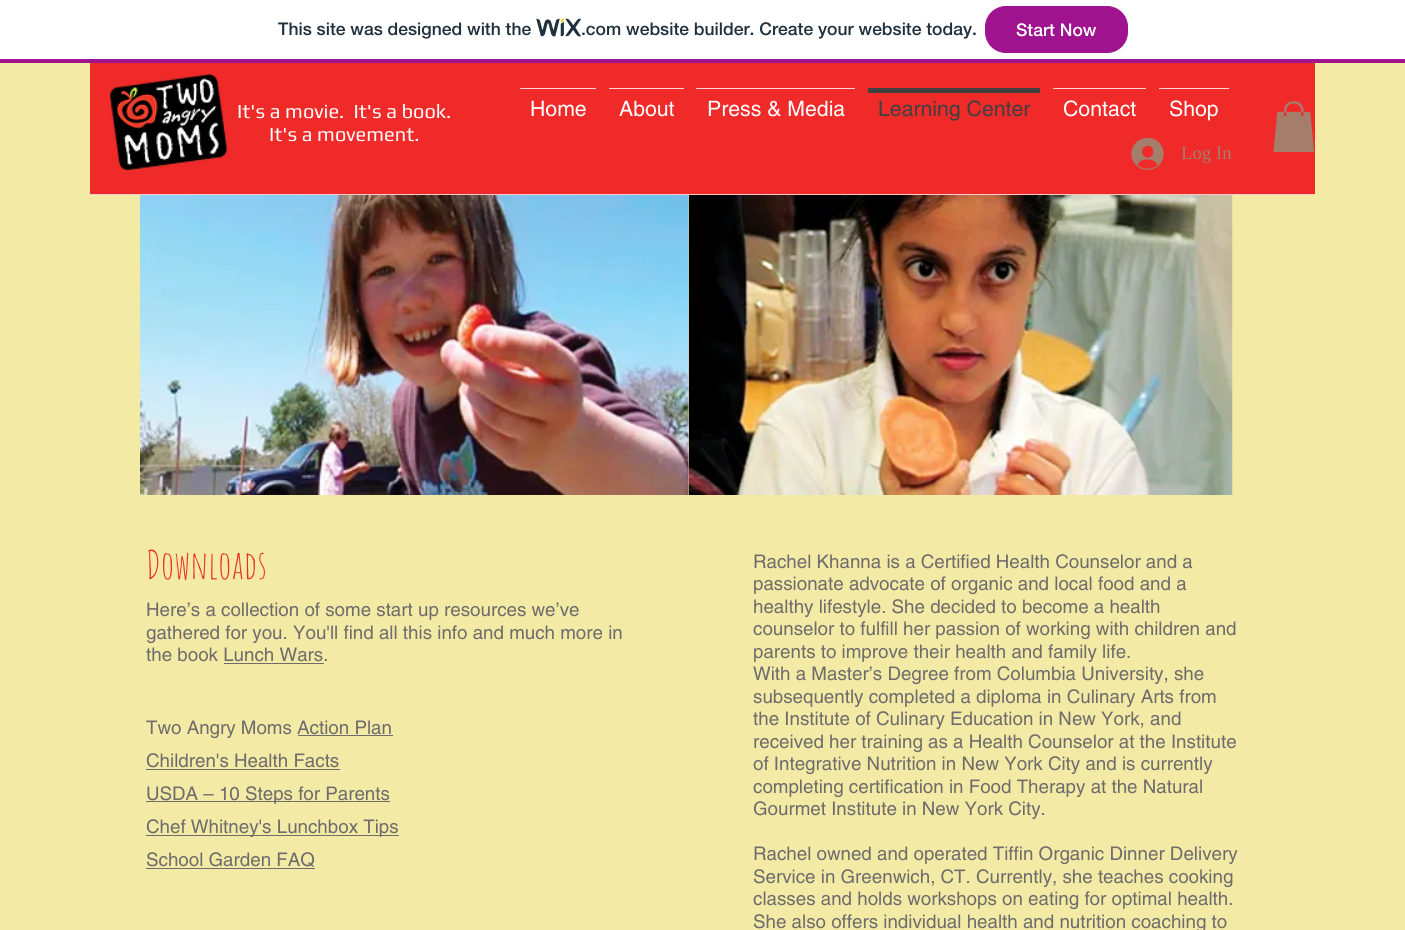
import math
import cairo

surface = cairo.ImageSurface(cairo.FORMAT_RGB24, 1405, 930)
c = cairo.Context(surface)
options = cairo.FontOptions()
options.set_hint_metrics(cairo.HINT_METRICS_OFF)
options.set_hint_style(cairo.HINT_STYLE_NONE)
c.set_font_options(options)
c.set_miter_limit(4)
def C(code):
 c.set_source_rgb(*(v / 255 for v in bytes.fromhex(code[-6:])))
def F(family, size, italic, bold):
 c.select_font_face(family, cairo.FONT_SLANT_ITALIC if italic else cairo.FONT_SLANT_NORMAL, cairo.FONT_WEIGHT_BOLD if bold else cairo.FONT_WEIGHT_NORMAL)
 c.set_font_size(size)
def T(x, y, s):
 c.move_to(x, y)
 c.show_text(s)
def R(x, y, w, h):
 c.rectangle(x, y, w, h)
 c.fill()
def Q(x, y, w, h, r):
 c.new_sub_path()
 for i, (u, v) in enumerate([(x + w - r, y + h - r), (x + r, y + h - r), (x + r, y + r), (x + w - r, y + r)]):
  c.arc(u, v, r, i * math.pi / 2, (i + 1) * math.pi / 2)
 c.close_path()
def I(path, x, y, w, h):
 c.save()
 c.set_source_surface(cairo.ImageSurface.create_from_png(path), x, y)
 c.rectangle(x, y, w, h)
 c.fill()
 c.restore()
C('ffffff')
c.paint()
C('a0138e')
R(0,59,1405,4)
F('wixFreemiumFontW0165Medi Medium',17.5,0,0)
C('20303c')
T(278,35,'This site was designed with the')
I('1.png',536,18,45,19)
T(581,35,'.com website builder. Create your website today.')
C('a0138e')
Q(985.5,6.5,142,46,20.5)
c.fill_preserve()
c.set_line_width(1)
c.stroke()
C('ffffff')
T(1016,36,'Start Now')
C('f2eaa5')
R(0,63,1405,867)
C('f02929')
R(90,63,1225,131)
C('fbcaca')
R(90,194,1225,1)
I('2.png',109,73,119,97)
F('Play',20,0,0)
C('ffffff')
T(237,118,'It\'s a movie.  It\'s a book.')
T(269,141,'It\'s a movement.')
C('fcd4d4')
R(520,88,76,1)
F('helvetica',21.25,0,0)
C('ffffff')
T(530,116,'Home')
C('fcd4d4')
R(609,88,75,1)
C('ffffff')
T(619,116,'About')
C('fcd4d4')
R(696,88,159,1)
C('ffffff')
T(707,116,'Press & Media')
C('404041')
R(868,88,172,5)
T(878,116,'Learning Center')
C('fcd4d4')
R(1053,88,93,1)
C('ffffff')
T(1063,116,'Contact')
C('fcd4d4')
R(1159,88,70,1)
C('ffffff')
T(1169,116,'Shop')
I('3.png',1273,101,41,51)
I('4.png',1131,138,33,32)
F('Liberation Serif',18.75,0,0)
C('a57d6b')
T(1181,159,'Log In')
I('5.png',140,195,549,300)
I('6.png',688,195,545,300)
F('Amatic SC',39,0,0)
C('f02929')
T(146,579,'Downloads')
F('helvetica',18.75,0,0)
C('706c6c')
T(146,616,'Here’s a collection of some start up resources we’ve')
T(146,639,'gathered for you. You\'ll find all this info and much more in')
T(146,661,'the book Lunch Wars.')
R(224,663,100,1)
T(146,734,'Two Angry Moms Action Plan')
R(298,735,95,1)
T(146,767,'Children\'s Health Facts')
R(146,769,194,1)
R(146,801,244,1)
T(146,800,'USDA – 10 Steps for Parents')
R(146,835,253,1)
T(146,833,'Chef Whitney\'s Lunchbox Tips')
T(146,866,'School Garden FAQ')
R(146,868,169,1)
T(753,568,'Rachel Khanna is a Certified Health Counselor and a')
T(753,590,'passionate advocate of organic and local food and a')
T(753,613,'healthy lifestyle. She decided to become a health')
T(753,635,'counselor to fulfill her passion of working with children and')
T(753,658,'parents to improve their health and family life.')
T(753,680,'With a Master’s Degree from Columbia University, she')
T(753,703,'subsequently completed a diploma in Culinary Arts from')
T(753,725,'the Institute of Culinary Education in New York, and')
T(753,748,'received her training as a Health Counselor at the Institute')
T(753,770,'of Integrative Nutrition in New York City and is currently')
T(753,793,'completing certification in Food Therapy at the Natural')
T(753,815,'Gourmet Institute in New York City.')
T(753,860,'Rachel owned and operated Tiffin Organic Dinner Delivery')
T(753,883,'Service in Greenwich, CT. Currently, she teaches cooking')
T(753,905,'classes and holds workshops on eating for optimal health.')
T(753,928,'She also offers individual health and nutrition coaching to')
surface.write_to_png('o.png')
